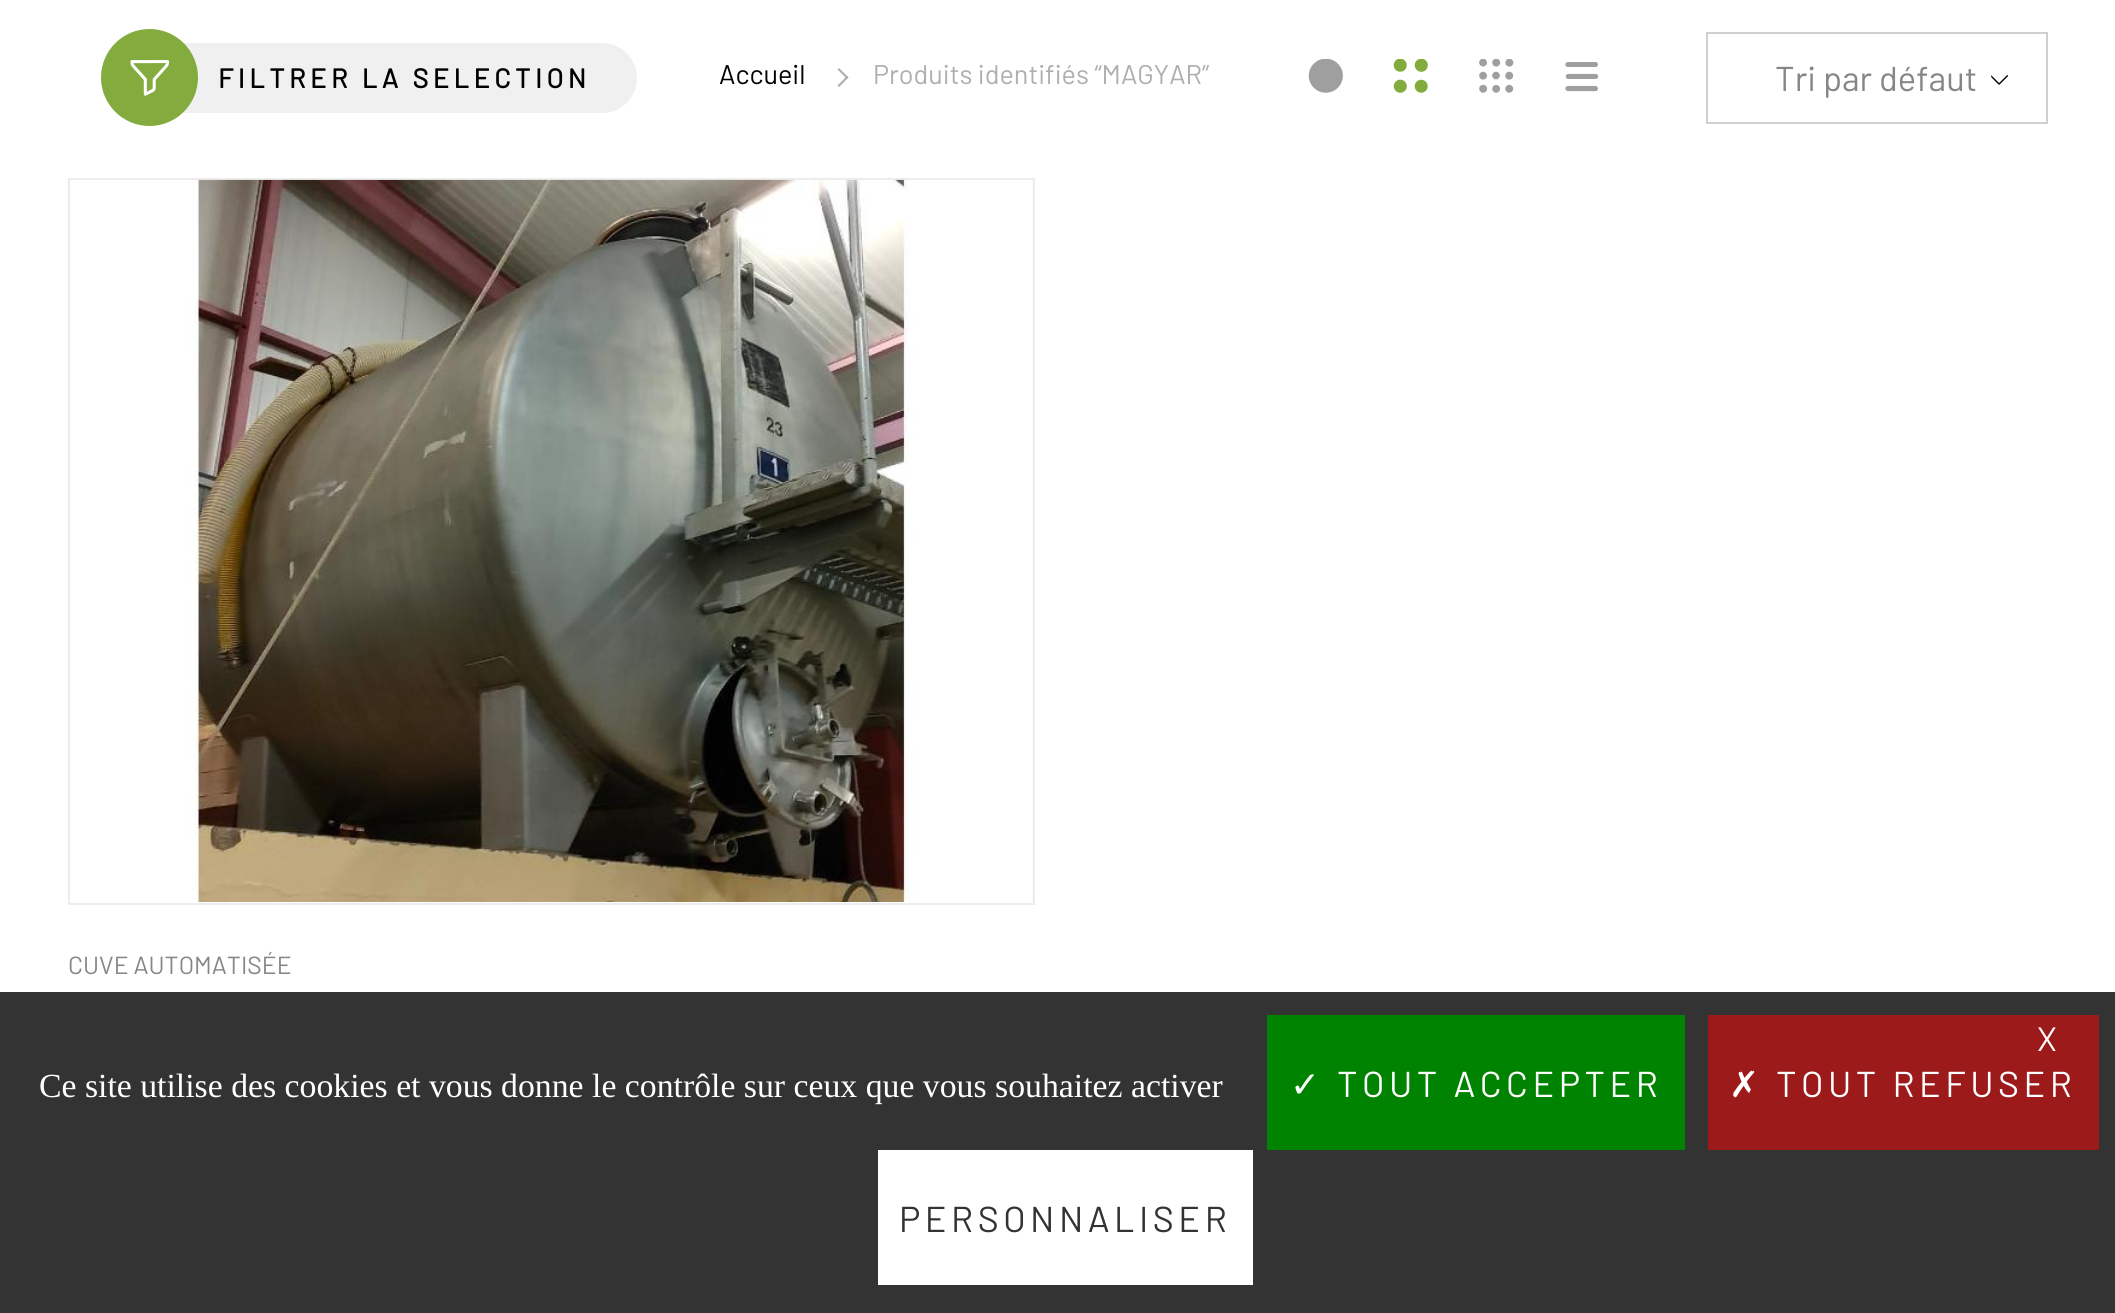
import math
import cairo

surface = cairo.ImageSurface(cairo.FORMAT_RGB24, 2115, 1313)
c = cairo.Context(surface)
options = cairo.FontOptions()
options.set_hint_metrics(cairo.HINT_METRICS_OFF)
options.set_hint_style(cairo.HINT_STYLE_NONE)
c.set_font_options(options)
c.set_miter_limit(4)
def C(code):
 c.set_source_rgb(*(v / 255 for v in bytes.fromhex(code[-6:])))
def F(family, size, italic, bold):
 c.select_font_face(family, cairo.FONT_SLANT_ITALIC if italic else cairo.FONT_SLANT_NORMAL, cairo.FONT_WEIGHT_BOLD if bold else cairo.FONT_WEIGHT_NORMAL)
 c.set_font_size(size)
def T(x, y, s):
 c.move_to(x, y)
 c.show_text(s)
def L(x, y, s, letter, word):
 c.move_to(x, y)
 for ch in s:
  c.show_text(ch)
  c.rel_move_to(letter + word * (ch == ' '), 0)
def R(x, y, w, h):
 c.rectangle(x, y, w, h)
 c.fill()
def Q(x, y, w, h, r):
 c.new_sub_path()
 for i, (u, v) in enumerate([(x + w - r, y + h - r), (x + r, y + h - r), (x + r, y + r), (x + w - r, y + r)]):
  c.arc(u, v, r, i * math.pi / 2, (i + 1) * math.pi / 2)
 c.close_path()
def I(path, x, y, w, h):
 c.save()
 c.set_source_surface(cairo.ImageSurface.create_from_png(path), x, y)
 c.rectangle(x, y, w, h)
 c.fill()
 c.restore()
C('ffffff')
c.paint()
C('f0f0f0')
Q(101,43,536,70,35)
c.fill()
C('83ab3e')
c.arc(149.5,77.5,48.5,0,2 * math.pi)
c.fill()
I('1.png',130,60,40,36)
F('Barlow',27,0,1)
C('000000')
L(218,88,'FILTRER LA SELECTION',4.5,0)
F('Barlow',27,0,0)
T(719,84,'Accueil')
C('aeaeae')
c.new_path()
c.move_to(839,68)
c.line_to(848.5,77.5)
c.line_to(847,79)
c.line_to(837.5,69.5)
c.close_path()
c.fill()
c.new_path()
c.move_to(847,76)
c.line_to(848.5,77.5)
c.line_to(839,87)
c.line_to(837.5,85.5)
c.close_path()
c.fill()
T(873,84,'Produits identifiés “MAGYAR”')
I('2.png',1308,59,35,34)
I('3.png',1393,59,35,34)
I('4.png',1479,59,35,34)
I('5.png',1565,62,34,30)
c.rectangle(1707,33,340,90)
C('cfcfcf')
c.stroke()
F('Barlow',34.5,0,0)
C('868686')
T(1775,91,'Tri par défaut')
I('6.png',1991,75,17,10)
c.rectangle(69,179,965,725)
C('ececec')
c.stroke()
C('f6f6f6')
R(1032,180,1,722)
I('7.png',70,179,963,723)
F('Barlow',24.75,0,0)
C('868686')
T(68,974,'CUVE AUTOMATISÉE')
C('333333')
R(0,992,2115,321)
C('9c1a1a')
R(1708,1015,391,135)
F('Barlow',33.75,0,0)
C('ffffff')
T(2037,1051,'X')
F('Liberation Serif',33.75,0,0)
T(39,1097,'Ce site utilise des cookies et vous donne le contrôle sur ceux que vous souhaitez activer')
C('008300')
R(1267,1015,418,135)
F('DejaVu Sans',36,0,0)
C('ffffff')
L(1290,1097,'✓',4.5,0)
F('Barlow',36,0,0)
L(1337,1097,'TOUT ACCEPTER',4.5,0)
F('DejaVu Sans',36,0,0)
L(1729,1097,'✗',4.5,0)
F('Barlow',36,0,0)
L(1776,1097,'TOUT REFUSER',4.5,0)
R(878,1150,375,135)
C('333333')
L(899,1232,'PERSONNALISER',4.5,0)
surface.write_to_png('o.png')
